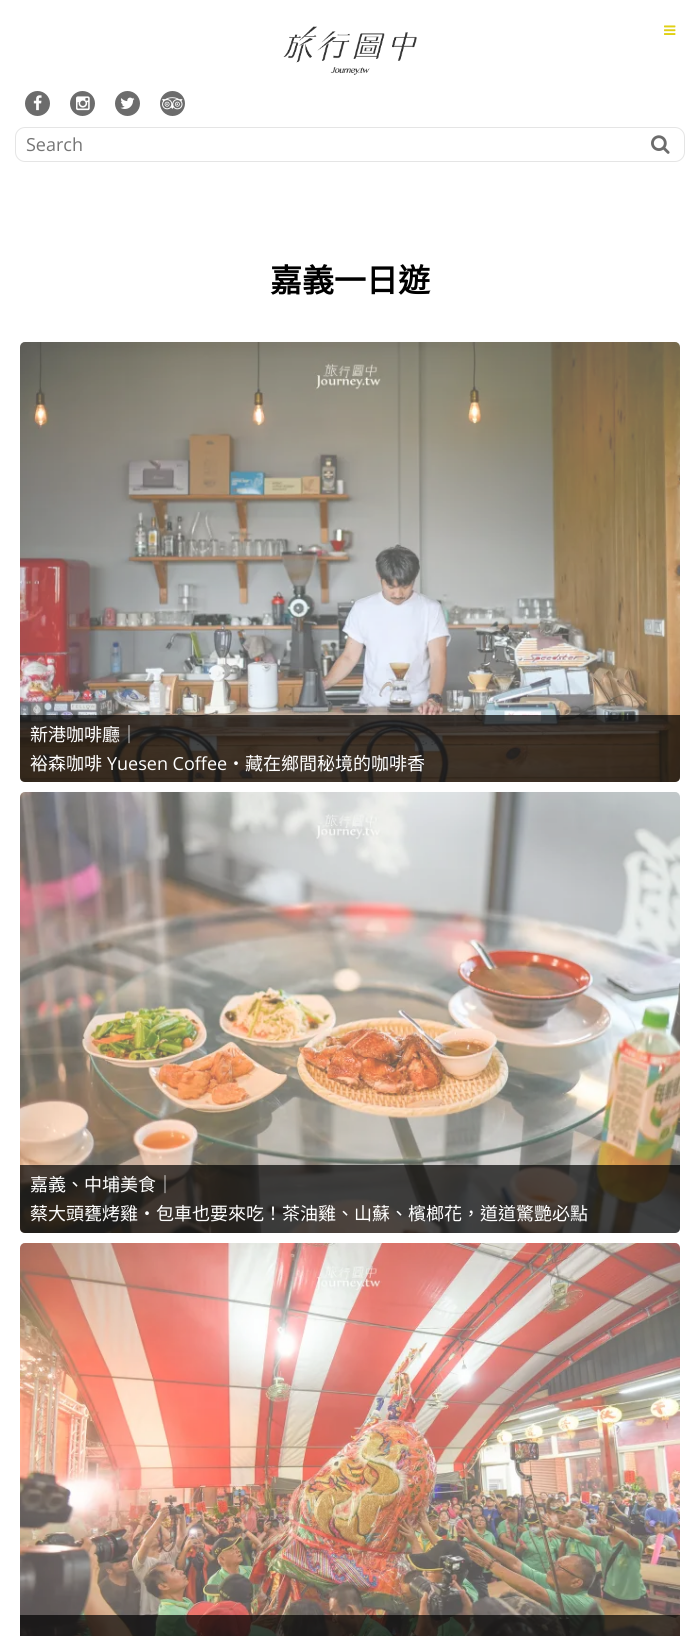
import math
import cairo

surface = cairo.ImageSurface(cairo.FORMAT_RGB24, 700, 1636)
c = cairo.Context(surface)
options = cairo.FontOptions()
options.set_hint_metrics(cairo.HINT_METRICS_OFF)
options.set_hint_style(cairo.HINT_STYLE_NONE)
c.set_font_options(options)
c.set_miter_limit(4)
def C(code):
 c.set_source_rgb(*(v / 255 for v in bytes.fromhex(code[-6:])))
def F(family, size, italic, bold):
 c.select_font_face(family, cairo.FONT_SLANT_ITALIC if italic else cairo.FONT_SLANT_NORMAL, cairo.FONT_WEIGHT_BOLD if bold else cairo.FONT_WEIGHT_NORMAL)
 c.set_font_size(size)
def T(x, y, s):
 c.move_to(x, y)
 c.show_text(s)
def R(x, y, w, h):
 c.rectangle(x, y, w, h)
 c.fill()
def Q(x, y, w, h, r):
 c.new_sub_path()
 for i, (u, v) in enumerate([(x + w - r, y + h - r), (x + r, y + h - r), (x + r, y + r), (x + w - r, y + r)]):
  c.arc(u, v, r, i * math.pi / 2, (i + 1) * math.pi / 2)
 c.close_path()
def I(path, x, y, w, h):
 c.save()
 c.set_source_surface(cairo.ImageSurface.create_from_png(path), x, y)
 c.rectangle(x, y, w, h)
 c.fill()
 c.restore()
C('ffffff')
c.paint()
I('1.png',664,25,12,10)
I('2.png',283,26,134,49)
C('6c6c6c')
c.arc(37.5,103.5,12.5,0,2 * math.pi)
c.fill()
I('3.png',33,95,9,16)
c.arc(82.5,103.5,12.5,0,2 * math.pi)
c.fill()
I('4.png',76,96,14,15)
c.arc(127.5,103.5,12.5,0,2 * math.pi)
c.fill()
I('5.png',120,97,15,12)
c.arc(172.5,103.5,12.5,0,2 * math.pi)
c.fill()
I('6.png',162,97,21,13)
Q(15.5,127.5,669,34,9.5)
C('e5e5e5')
c.set_line_width(1)
c.stroke()
F('Open Sans',18,0,0)
C('757575')
T(26,151,'Search')
I('7.png',651,135,19,19)
F('Noto Sans CJK TC',32,0,1)
C('000000')
T(270,292,'嘉義一日遊')
I('8.png',20,342,660,440)
c.set_source_rgba(0,0,0,0.7)
c.new_path()
c.move_to(20,715)
c.line_to(680,715)
c.line_to(680,777)
c.curve_to(680,780,678,782,675,782)
c.line_to(25,782)
c.curve_to(22,782,20,780,20,777)
c.close_path()
c.fill()
F('Noto Sans CJK TC',18,0,0)
C('ffffff')
T(30,741,'新港咖啡廳｜')
T(30,770,'裕森咖啡')
F('Open Sans',18,0,0)
T(107,770,'Yuesen Coffee')
F('Noto Sans CJK TC',18,0,0)
T(227,770,'・藏在鄉間秘境的咖啡香')
I('9.png',20,792,660,441)
c.set_source_rgba(0,0,0,0.7)
c.new_path()
c.move_to(20,1165)
c.line_to(680,1165)
c.line_to(680,1228)
c.curve_to(680,1231,678,1233,675,1233)
c.line_to(25,1233)
c.curve_to(22,1233,20,1231,20,1228)
c.close_path()
c.fill()
C('ffffff')
T(30,1191,'嘉義、中埔美食｜')
T(30,1220,'蔡大頭甕烤雞・包車也要來吃！茶油雞、山蘇、檳榔花，道道驚艷必點')
I('10.png',20,1243,660,393)
c.set_source_rgba(0,0,0,0.7)
R(20,1615,660,21)
surface.write_to_png('o.png')
